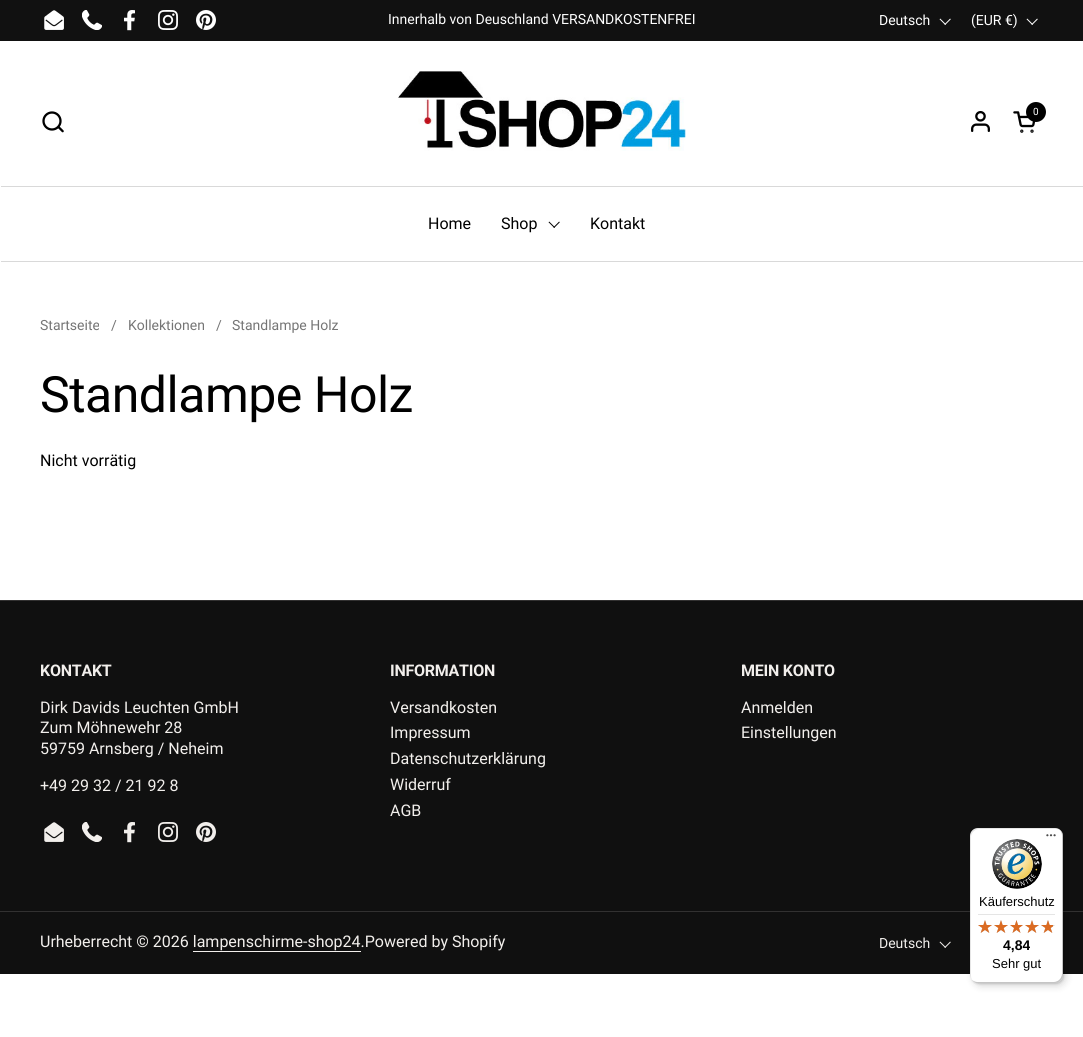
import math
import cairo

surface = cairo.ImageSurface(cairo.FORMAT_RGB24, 1083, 1037)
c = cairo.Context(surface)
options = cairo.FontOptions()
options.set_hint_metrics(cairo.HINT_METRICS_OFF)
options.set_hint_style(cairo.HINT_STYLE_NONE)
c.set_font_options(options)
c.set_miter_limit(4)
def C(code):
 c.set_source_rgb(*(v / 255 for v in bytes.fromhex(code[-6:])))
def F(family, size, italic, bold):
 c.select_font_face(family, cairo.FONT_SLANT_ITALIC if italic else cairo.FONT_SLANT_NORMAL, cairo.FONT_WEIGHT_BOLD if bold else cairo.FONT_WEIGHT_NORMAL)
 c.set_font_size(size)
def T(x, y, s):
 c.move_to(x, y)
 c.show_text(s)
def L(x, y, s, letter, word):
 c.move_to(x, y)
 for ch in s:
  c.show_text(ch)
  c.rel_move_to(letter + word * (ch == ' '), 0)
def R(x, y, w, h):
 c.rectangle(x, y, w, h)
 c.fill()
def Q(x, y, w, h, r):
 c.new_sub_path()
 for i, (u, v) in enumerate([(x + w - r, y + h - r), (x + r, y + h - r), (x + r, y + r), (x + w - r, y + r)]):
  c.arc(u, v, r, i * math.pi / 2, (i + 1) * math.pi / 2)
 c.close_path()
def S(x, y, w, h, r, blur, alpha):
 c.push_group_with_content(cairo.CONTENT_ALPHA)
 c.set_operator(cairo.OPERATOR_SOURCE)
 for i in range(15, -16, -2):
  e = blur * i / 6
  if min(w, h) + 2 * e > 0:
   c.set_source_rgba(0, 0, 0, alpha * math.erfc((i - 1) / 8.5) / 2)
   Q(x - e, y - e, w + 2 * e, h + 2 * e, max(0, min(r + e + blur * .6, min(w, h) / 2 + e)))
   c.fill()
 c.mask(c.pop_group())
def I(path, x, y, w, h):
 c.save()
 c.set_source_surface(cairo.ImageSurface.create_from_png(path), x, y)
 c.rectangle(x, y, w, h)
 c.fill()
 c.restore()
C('ffffff')
c.paint()
C('111111')
R(0,0,1083,41)
I('1.png',44,10,20,20)
I('2.png',82,10,20,20)
I('3.png',124,10,11,21)
I('4.png',158,10,20,20)
I('5.png',196,10,20,20)
F('Roboto',14,0,0)
C('ffffff')
T(388,24,'Innerhalb von Deuschland VERSANDKOSTENFREI')
T(879,25,'Deutsch')
I('6.png',939,18,12,7)
T(971,25,'(EUR €)')
I('6.png',1026,18,12,7)
I('7.png',42,111,22,22)
I('8.png',398,71,288,80)
I('9.png',971,111,19,21)
C('000000')
c.arc(1036,112,10,0,2 * math.pi)
c.fill()
F('Roboto',10,0,0)
C('ffffff')
T(1033,115,'0')
I('10.png',1013,111,22,22)
C('d9d9d9')
R(1,186,1082,1)
F('Roboto',16,0,0)
C('000000')
T(428,229,'Home')
T(501,229,'Shop')
I('11.png',548,221,12,7)
T(590,229,'Kontakt')
C('d9d9d9')
R(1,261,1082,1)
F('Roboto',14,0,0)
C('757575')
T(40,330,'Startseite')
T(111,330,'/')
T(128,330,'Kollektionen')
T(216,330,'/')
T(232,330,'Standlampe Holz')
F('Roboto',50,0,0)
C('000000')
L(40,412,'Standlampe Holz',-.5,0)
F('Roboto',16,0,0)
T(40,466,'Nicht vorrätig')
C('101010')
R(0,601,1083,373)
C('323131')
R(0,600,1083,1)
F('Roboto',16,0,1)
C('f2efec')
L(40,676,'KONTAKT',-.25,0)
F('Roboto',16,0,0)
T(40,713,'Dirk Davids Leuchten GmbH')
T(40,733,'Zum Möhnewehr 28')
T(40,754,'59759 Arnsberg / Neheim')
T(40,791,'+49 29 32 / 21 92 8')
I('12.png',44,822,20,20)
I('13.png',82,822,20,20)
I('14.png',124,822,11,21)
I('15.png',158,822,20,20)
I('16.png',196,822,20,20)
F('Roboto',16,0,1)
L(390,676,'INFORMATION',-.25,0)
F('Roboto',16,0,0)
T(390,713,'Versandkosten')
T(390,738,'Impressum')
T(390,764,'Datenschutzerklärung')
T(390,790,'Widerruf')
T(390,816,'AGB')
F('Roboto',16,0,1)
L(741,676,'MEIN KONTO',-.25,0)
F('Roboto',16,0,0)
T(741,713,'Anmelden')
T(741,738,'Einstellungen')
C('323131')
R(0,911,1083,1)
C('f2efec')
T(40,947,'Urheberrecht © 2026 lampenschirme-shop24.Powered by Shopify')
R(193,951,168,1)
F('Roboto',14,0,0)
T(879,948,'Deutsch')
I('17.png',939,941,12,7)
C('000000')
S(973,831,93,155,8,4,.15)
S(971,829,93,155,8,1,.15)
C('ffffff')
Q(970,828,93,155,8)
c.fill()
c.set_source_rgba(0,0,0,0.1)
c.new_path()
c.move_to(979,829)
c.line_to(1056,829)
c.curve_to(1058,829,1060,830,1062,832)
c.curve_to(1060,830,1058,828,1055,828)
c.line_to(978,828)
c.curve_to(974,828,970,832,970,836)
c.line_to(970,975)
c.curve_to(970,978,972,980,974,982)
c.curve_to(972,980,971,978,971,976)
c.line_to(971,837)
c.curve_to(971,833,975,829,979,829)
c.close_path()
c.fill()
c.set_source_rgba(0,0,0,0.2)
c.new_path()
c.move_to(971,979)
c.curve_to(973,981,975,983,978,983)
c.line_to(1055,983)
c.curve_to(1059,983,1063,979,1063,975)
c.line_to(1063,836)
c.curve_to(1063,833,1061,831,1059,829)
c.curve_to(1061,831,1062,833,1062,835)
c.line_to(1062,974)
c.curve_to(1062,978,1058,982,1054,982)
c.line_to(977,982)
c.curve_to(975,982,973,981,971,979)
c.close_path()
c.fill()
c.set_source_rgba(0.196,0.196,0.196,0.2)
c.new_path()
c.move_to(972,980)
c.curve_to(973,982,976,983,978,983)
c.line_to(1055,983)
c.curve_to(1059,983,1063,979,1063,975)
c.line_to(1063,836)
c.curve_to(1063,834,1062,831,1060,830)
c.curve_to(1061,831,1062,833,1062,835)
c.line_to(1062,974)
c.curve_to(1062,979,1059,982,1054,982)
c.line_to(977,982)
c.curve_to(975,982,973,981,972,980)
c.close_path()
c.fill()
c.set_source_rgba(1,1,1,0.3)
c.new_path()
c.move_to(1062,836)
c.curve_to(1062,831,1059,828,1054,828)
c.line_to(1055,828)
c.curve_to(1059,828,1063,832,1063,836)
c.line_to(1063,975)
c.curve_to(1063,979,1059,983,1055,983)
c.line_to(978,983)
c.curve_to(974,983,970,979,970,975)
c.line_to(970,974)
c.curve_to(970,979,973,982,978,982)
c.line_to(1054,982)
c.curve_to(1059,982,1062,979,1062,974)
c.close_path()
c.fill()
I('18.png',1046,834,10,3)
I('19.png',992,839,50,50)
F('Liberation Sans',13,0,0)
C('000000')
T(979,906,'Käuferschutz')
C('e5e5e5')
R(978,914,77,1)
I('20.png',978,920,14,13)
I('20.png',994,920,14,13)
I('21.png',1010,920,13,13)
I('20.png',1025,920,14,13)
I('20.png',1041,920,14,13)
I('22.png',978,920,14,13)
I('22.png',994,920,14,13)
I('23.png',1010,920,13,13)
I('22.png',1025,920,14,13)
I('24.png',1041,920,12,13)
F('Liberation Sans',14,0,1)
C('000000')
T(1003,950,'4,84')
F('Liberation Sans',13,0,0)
T(992,968,'Sehr gut')
surface.write_to_png('o.png')
